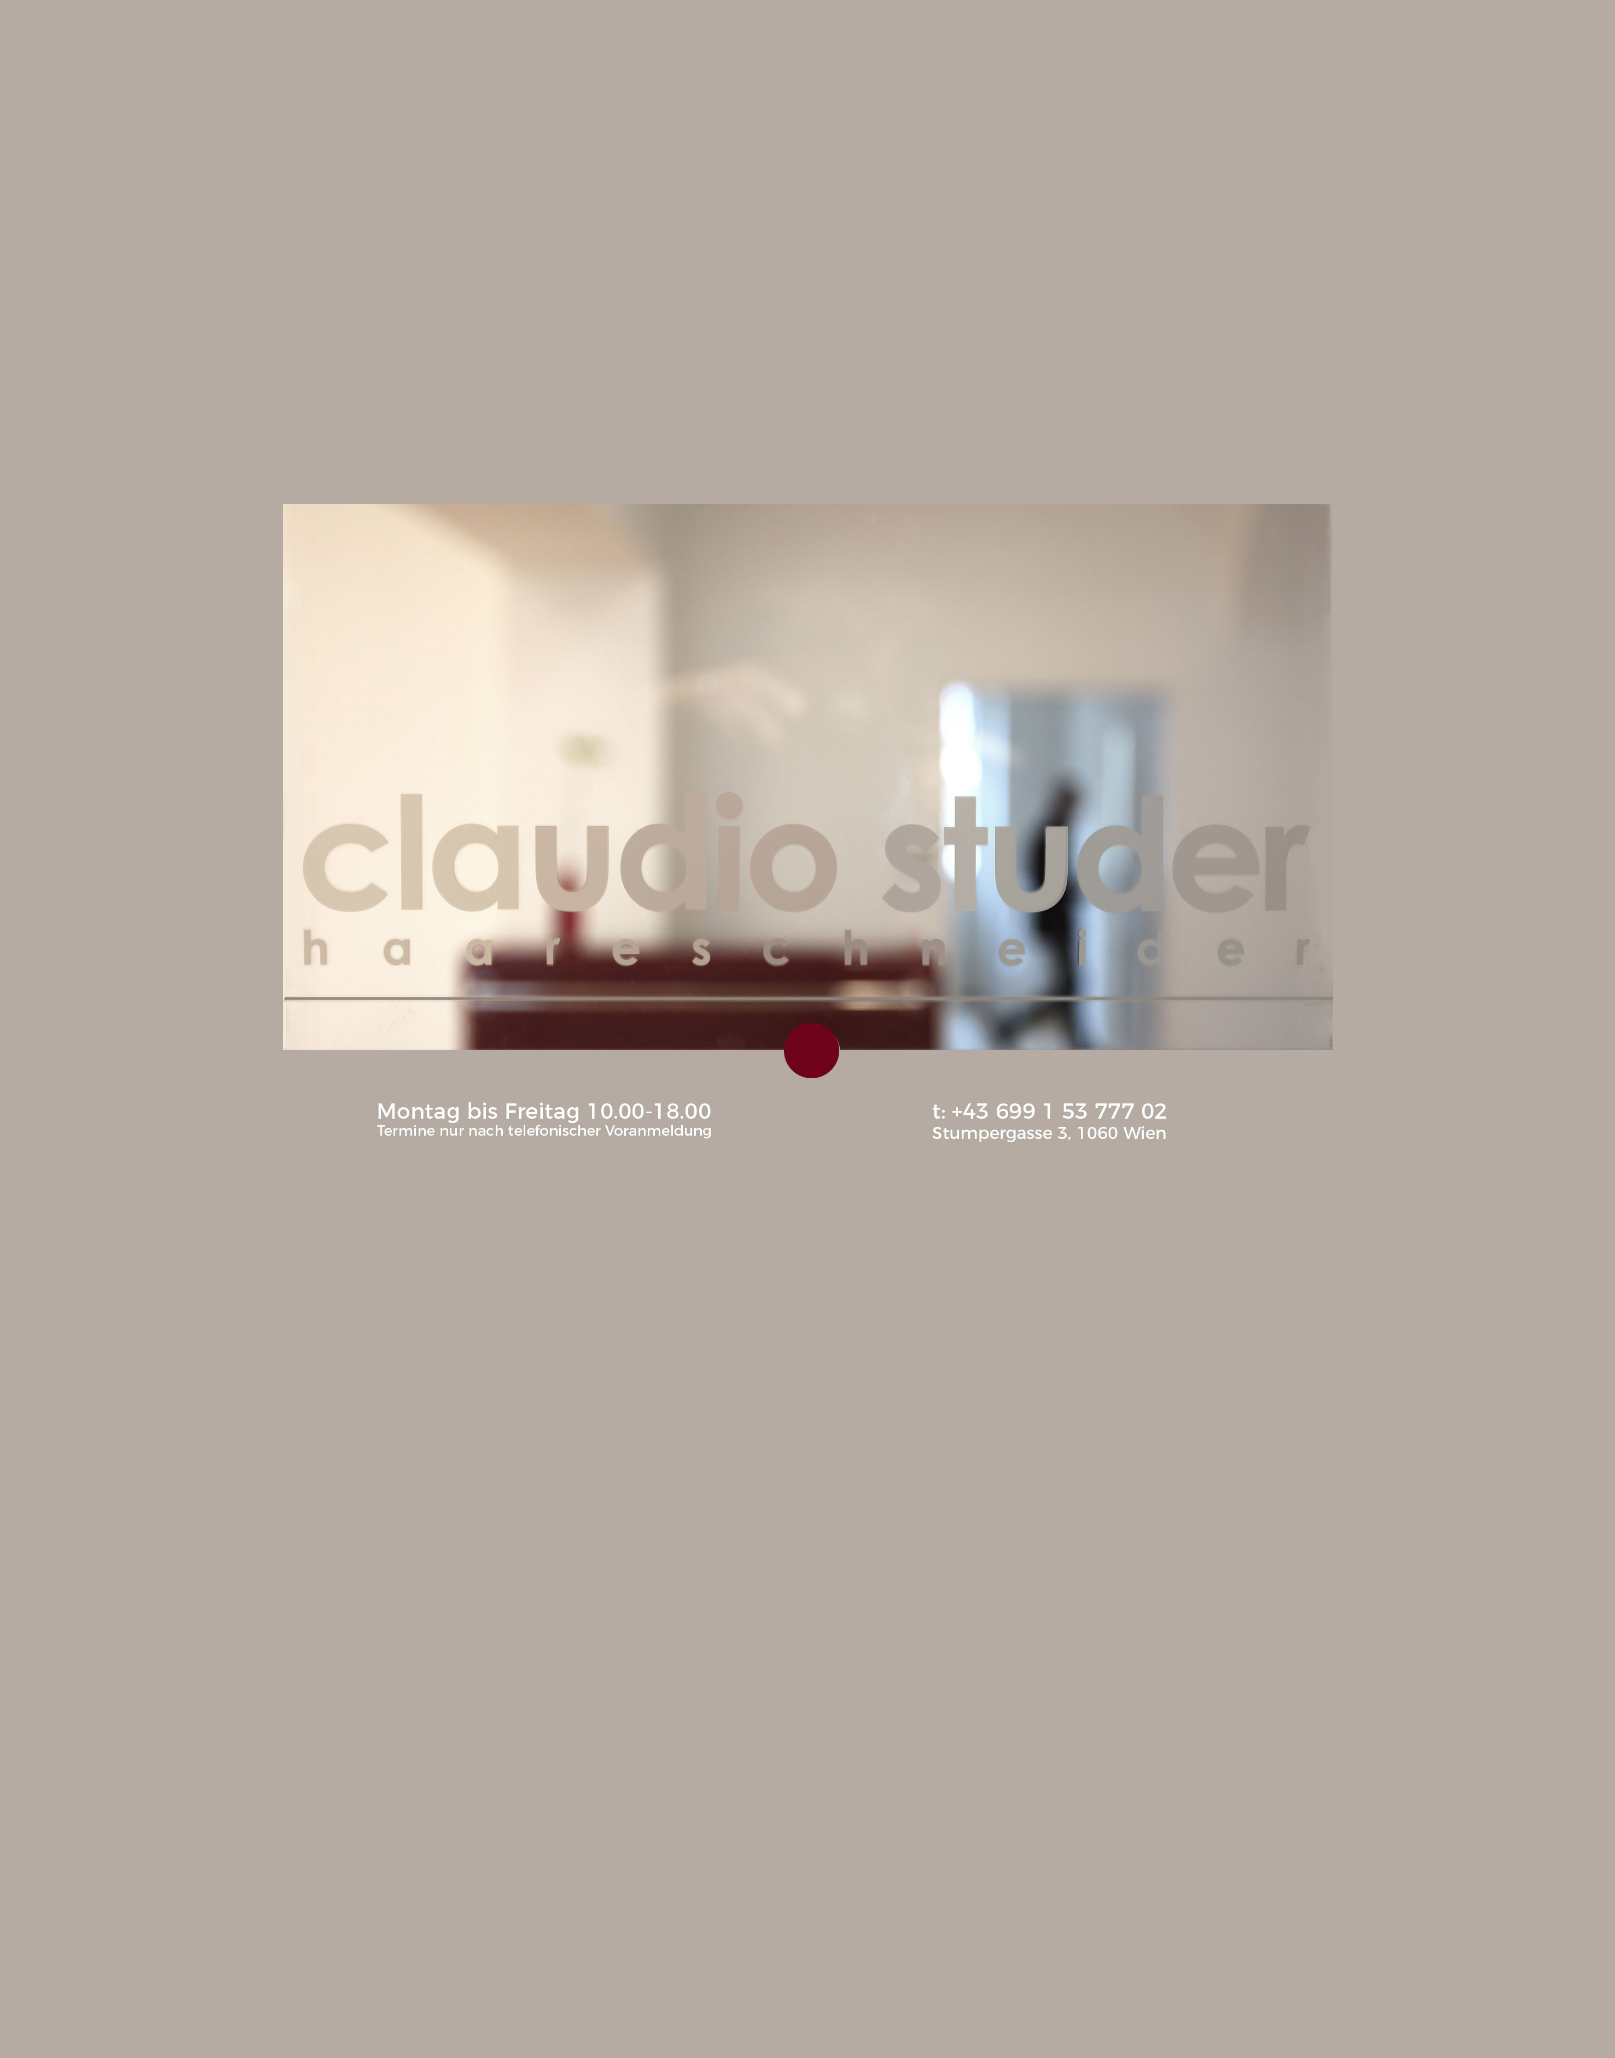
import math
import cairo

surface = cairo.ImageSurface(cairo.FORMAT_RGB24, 1615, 2058)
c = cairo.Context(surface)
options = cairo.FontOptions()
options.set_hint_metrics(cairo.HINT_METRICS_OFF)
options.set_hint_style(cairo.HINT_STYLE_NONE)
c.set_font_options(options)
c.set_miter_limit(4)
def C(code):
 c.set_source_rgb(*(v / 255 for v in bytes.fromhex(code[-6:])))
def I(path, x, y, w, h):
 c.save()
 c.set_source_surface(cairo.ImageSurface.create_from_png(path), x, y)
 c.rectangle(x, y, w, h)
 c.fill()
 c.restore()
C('b5aba2')
c.paint()
I('1.png',283,504,1050,639)
surface.write_to_png('o.png')
